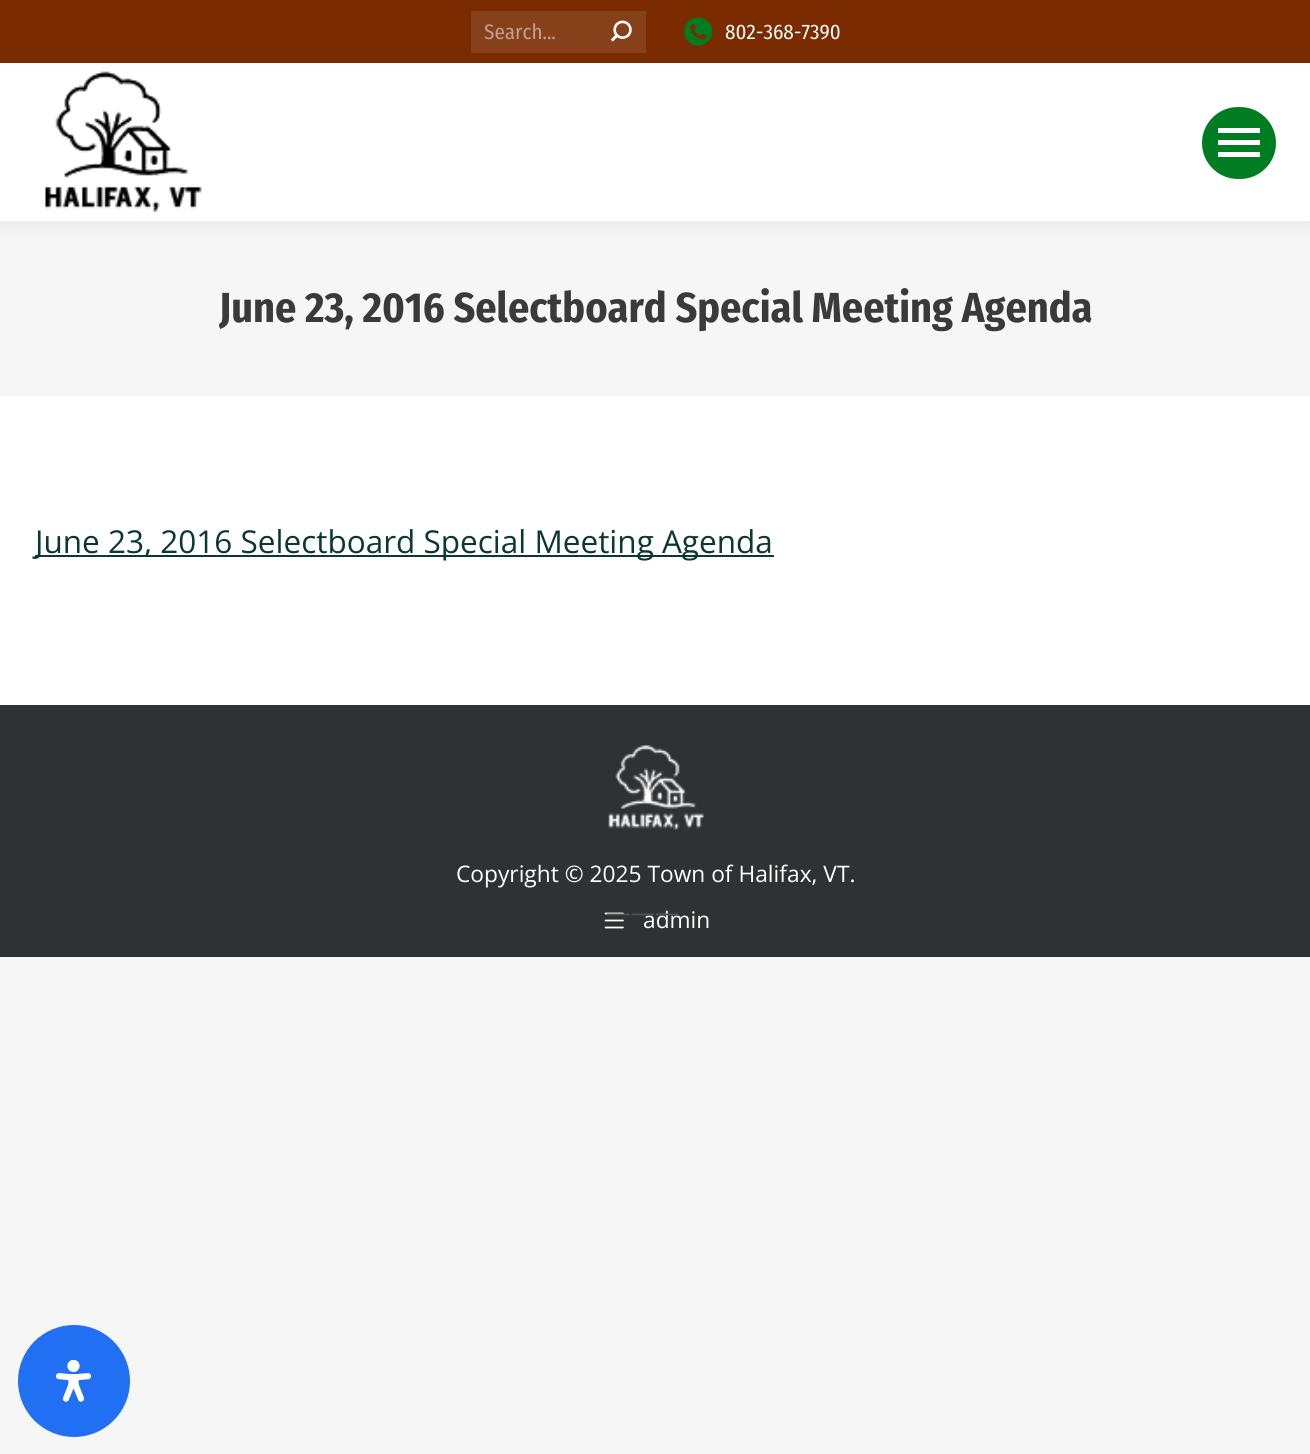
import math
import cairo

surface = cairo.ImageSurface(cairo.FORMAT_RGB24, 1310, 1454)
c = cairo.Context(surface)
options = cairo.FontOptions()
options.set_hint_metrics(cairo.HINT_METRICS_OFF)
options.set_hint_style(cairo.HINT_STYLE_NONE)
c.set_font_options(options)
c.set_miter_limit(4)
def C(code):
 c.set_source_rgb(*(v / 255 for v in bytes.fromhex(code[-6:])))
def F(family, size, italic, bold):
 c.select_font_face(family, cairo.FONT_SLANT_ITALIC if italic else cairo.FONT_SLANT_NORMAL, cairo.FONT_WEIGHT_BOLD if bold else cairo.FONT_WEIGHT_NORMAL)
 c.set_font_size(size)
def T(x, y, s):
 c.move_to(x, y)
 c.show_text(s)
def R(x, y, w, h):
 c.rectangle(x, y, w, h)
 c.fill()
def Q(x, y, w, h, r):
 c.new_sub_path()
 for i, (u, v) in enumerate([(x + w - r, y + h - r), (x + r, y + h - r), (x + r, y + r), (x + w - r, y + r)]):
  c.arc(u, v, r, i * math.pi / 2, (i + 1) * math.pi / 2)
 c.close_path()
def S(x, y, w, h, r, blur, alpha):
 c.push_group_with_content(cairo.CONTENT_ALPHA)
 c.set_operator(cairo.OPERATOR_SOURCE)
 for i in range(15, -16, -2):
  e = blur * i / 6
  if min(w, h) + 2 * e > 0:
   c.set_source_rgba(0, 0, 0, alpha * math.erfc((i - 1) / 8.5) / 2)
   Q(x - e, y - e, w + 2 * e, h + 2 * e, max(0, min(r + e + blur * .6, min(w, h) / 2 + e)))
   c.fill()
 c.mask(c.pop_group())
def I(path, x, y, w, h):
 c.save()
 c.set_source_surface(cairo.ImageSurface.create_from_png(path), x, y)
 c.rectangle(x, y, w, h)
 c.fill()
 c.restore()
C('f6f6f6')
c.paint()
C('ffffff')
R(0,396,1310,309)
C('000000')
S(-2,-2,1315,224,0,13,.07)
C('ffffff')
R(0,63,1310,158)
C('7a2c00')
R(0,0,1310,63)
C('87411a')
R(471,11,175,42)
F('Fira Sans Condensed',21,0,0)
C('c3a08d')
T(484,39,'Search...')
I('1.png',610,20,22,22)
I('2.png',684,17,29,29)
C('ffffff')
T(725,39,'802-368-7390')
I('3.png',45,71,157,142)
C('007c21')
Q(1202,107,74,72,36)
c.fill()
C('ffffff')
R(1218,128,42,5)
R(1218,140,42,5)
R(1218,152,42,5)
c.save()
c.rectangle(219,278,873,60)
c.clip()
F('Fira Sans Condensed',42,0,1)
C('3a3a3a')
T(219,322,'June 23, 2016 Selectboard Special Meeting Agenda')
c.restore()
C('0b3830')
R(35,555,739,2)
F('Open Sans',31.5,0,0)
T(35,553,'June 23, 2016 Selectboard Special Meeting Agenda')
C('303135')
R(0,705,1310,252)
I('4.png',608,745,96,85)
F('Open Sans',22.75,0,0)
C('ffffff')
T(456,882,'Copyright © 2025 Town of Halifax, VT.')
I('5.png',604,912,20,17)
T(643,928,'admin')
F('Open Sans',24.5,0,0)
C('515255')
T(606,921,'———')
C('216ff3')
c.new_path()
c.arc(74,1381,56,0,2 * math.pi)
c.fill()
I('6.png',55,1360,37,42)
surface.write_to_png('o.png')
